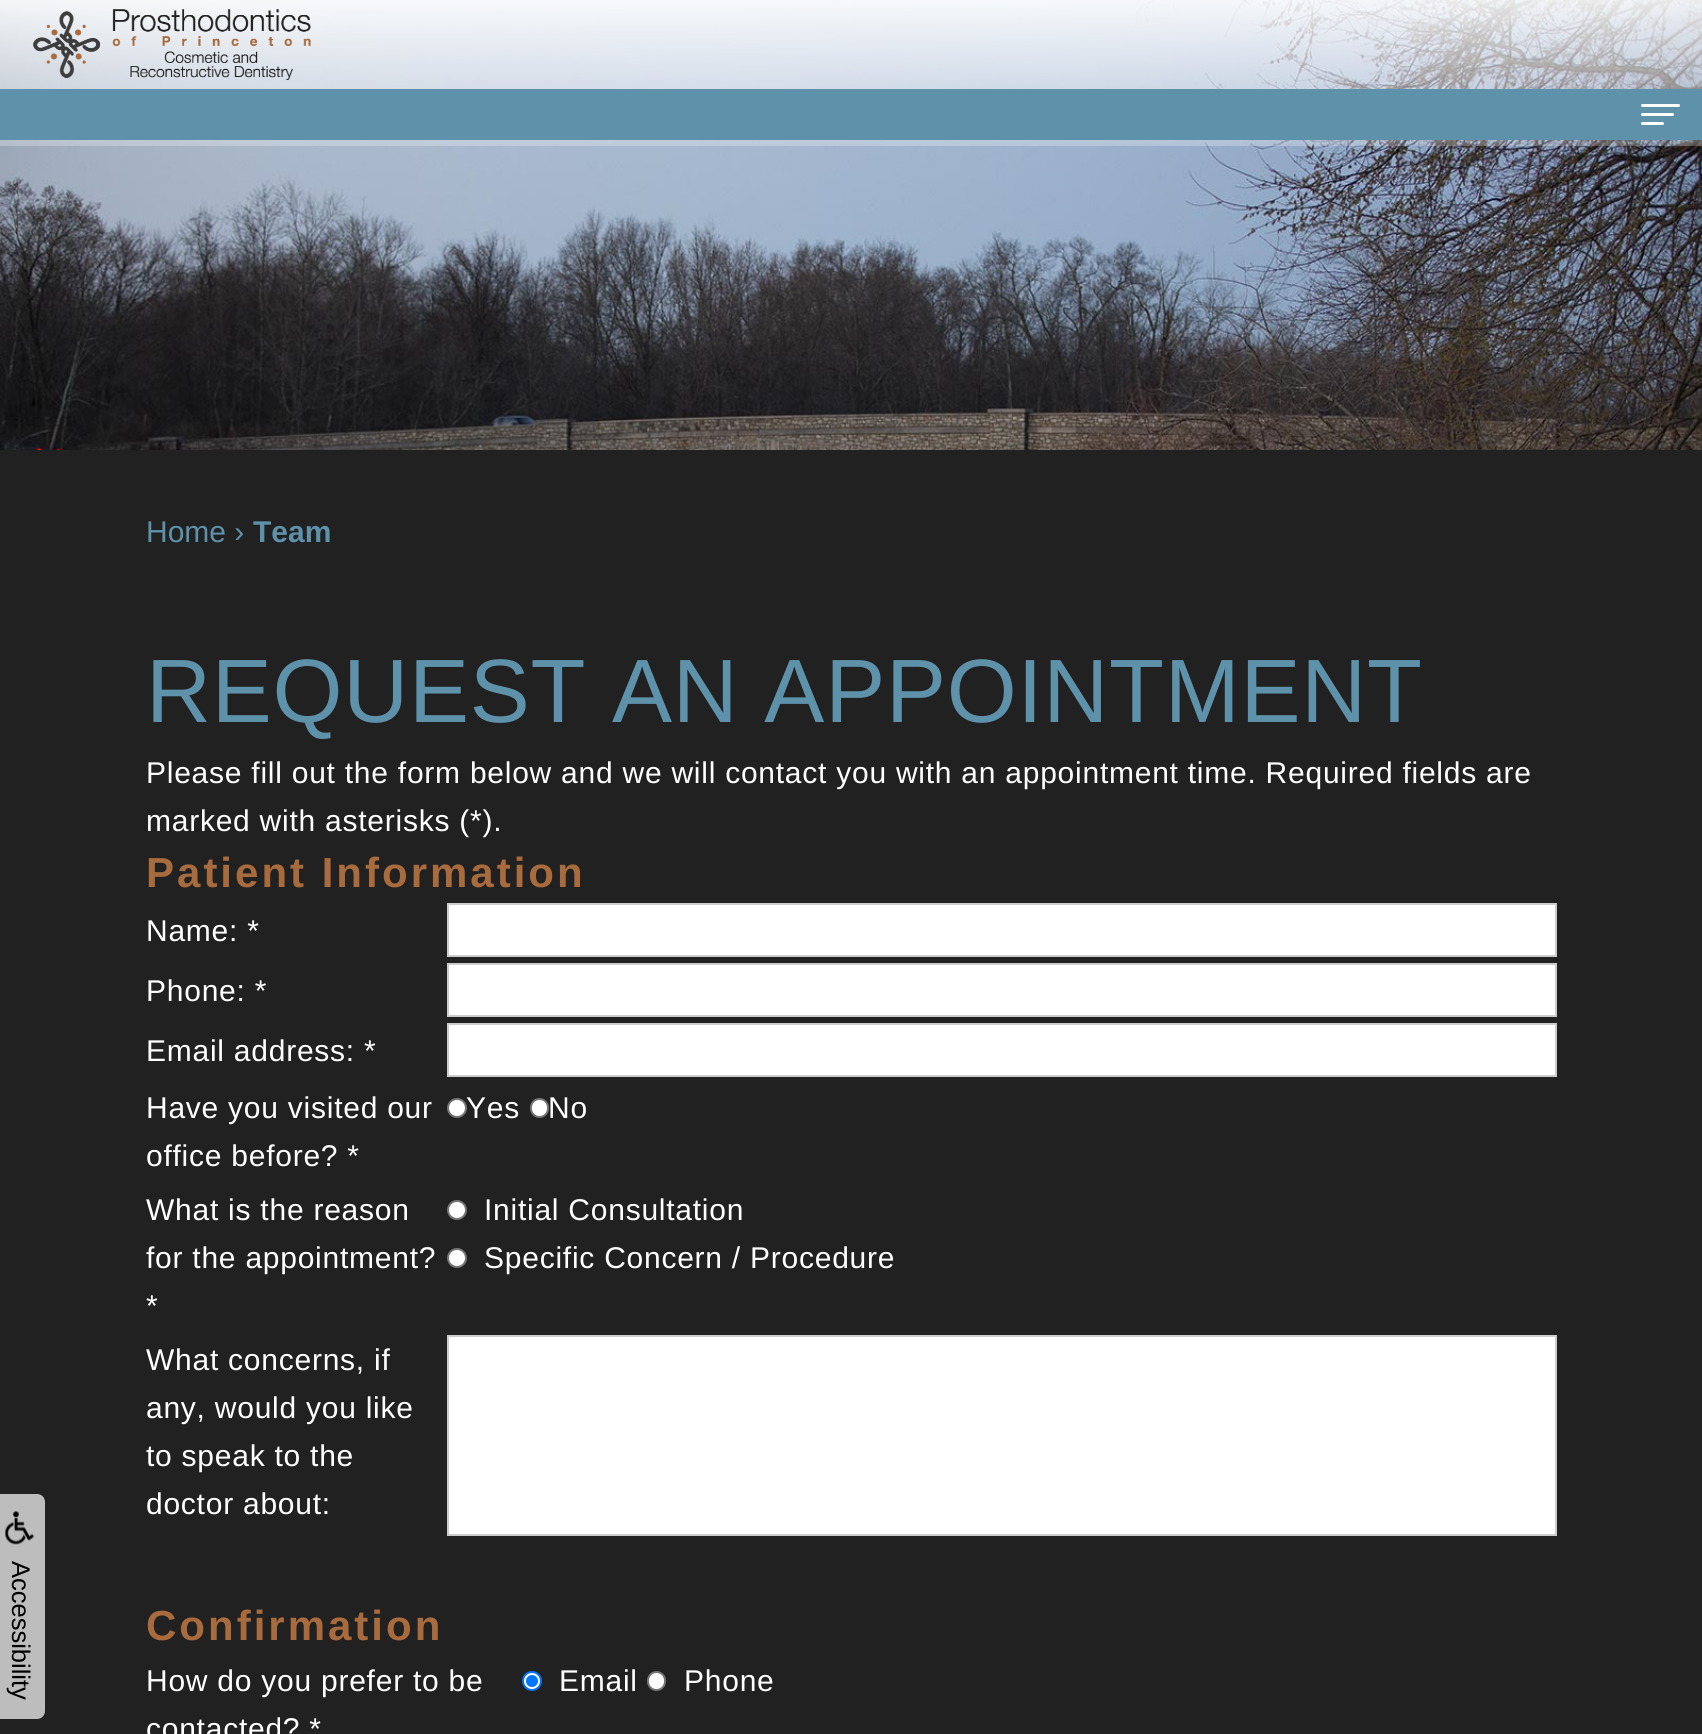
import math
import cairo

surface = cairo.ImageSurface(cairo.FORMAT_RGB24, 1702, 1734)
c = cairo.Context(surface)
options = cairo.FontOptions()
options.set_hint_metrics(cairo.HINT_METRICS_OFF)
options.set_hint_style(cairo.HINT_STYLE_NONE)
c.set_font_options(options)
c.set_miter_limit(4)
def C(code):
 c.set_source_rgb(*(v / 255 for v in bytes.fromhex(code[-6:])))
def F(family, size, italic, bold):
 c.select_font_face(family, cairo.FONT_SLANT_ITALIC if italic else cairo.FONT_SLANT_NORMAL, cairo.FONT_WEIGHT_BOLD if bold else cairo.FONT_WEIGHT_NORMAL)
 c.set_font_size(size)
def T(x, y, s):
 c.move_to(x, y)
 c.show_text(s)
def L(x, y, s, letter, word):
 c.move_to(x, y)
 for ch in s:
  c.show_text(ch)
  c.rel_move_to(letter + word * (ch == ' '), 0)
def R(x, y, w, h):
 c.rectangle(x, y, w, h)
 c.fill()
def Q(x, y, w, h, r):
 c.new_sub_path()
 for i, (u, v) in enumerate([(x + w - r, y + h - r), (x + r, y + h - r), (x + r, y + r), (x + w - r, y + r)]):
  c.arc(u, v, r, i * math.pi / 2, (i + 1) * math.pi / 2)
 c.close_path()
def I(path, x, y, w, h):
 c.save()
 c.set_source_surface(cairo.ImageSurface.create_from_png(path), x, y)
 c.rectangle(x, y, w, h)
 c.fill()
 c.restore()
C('212121')
c.paint()
I('1.png',0,0,1702,450)
I('2.png',32,9,279,71)
C('5e91aa')
R(0,89,1702,51)
C('ffffff')
Q(1641,104,39,3,1.5)
c.fill()
Q(1641,113,33,3,1.5)
c.fill()
Q(1641,122,23,3,1.5)
c.fill()
F('Liberation Sans',30,0,0)
C('5e91aa')
T(146,542,'Home ›')
F('Liberation Sans',30,0,1)
T(253,542,'Team')
c.set_source_rgba(1,1,1,0.7)
c.new_path()
c.move_to(-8,1494)
c.line_to(37,1494)
c.curve_to(41.5,1494,45,1497.5,45,1502)
c.line_to(45,1711)
c.curve_to(45,1715.5,41.5,1719,37,1719)
c.line_to(-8,1719)
c.close_path()
c.fill()
I('3.png',4,1511,30,34)
F('Liberation Sans',25.5,0,0)
C('000000')
c.save()
c.translate(12,1561)
c.rotate(90 * math.pi / 180)
T(0,0,'Accessibility')
c.restore()
F('Liberation Sans',90,0,0)
C('5e91aa')
L(146,722,'REQUEST AN APPOINTMENT',.75,0)
F('Liberation Sans',30,0,0)
C('ffffff')
L(146,783,'Please fill out the form below and we will contact you with an appointment time. Required fields are',.75,0)
L(146,831,'marked with asterisks (*).',.75,0)
F('Liberation Sans',42,0,1)
C('a86b3d')
L(146,887,'Patient Information',3,0)
F('Liberation Sans',30,0,0)
C('ffffff')
L(146,941,'Name: *',.75,0)
c.rectangle(448,904,1108,52)
c.fill_preserve()
C('cccccc')
c.stroke()
C('ffffff')
L(146,1001,'Phone: *',.75,0)
c.rectangle(448,964,1108,52)
c.fill_preserve()
C('cccccc')
c.stroke()
C('ffffff')
L(146,1061,'Email address: *',.75,0)
c.rectangle(448,1024,1108,52)
c.fill_preserve()
C('cccccc')
c.stroke()
C('ffffff')
L(146,1118,'Have you visited our',.75,0)
L(146,1166,'office before? *',.75,0)
c.new_path()
c.arc(457,1108,9,0,2 * math.pi)
c.fill_preserve()
C('767676')
c.stroke()
C('ffffff')
L(466,1118,'Yes',.75,0)
Q(531,1099,17,18,8.5)
c.fill_preserve()
C('767676')
c.stroke()
C('ffffff')
L(548,1118,'No',.75,0)
L(146,1220,'What is the reason',.75,0)
L(146,1268,'for the appointment?',.75,0)
L(146,1316,'*',.75,0)
c.new_path()
c.arc(457,1210,9,0,2 * math.pi)
c.fill_preserve()
C('767676')
c.stroke()
C('ffffff')
L(484,1220,'Initial Consultation',.75,0)
c.new_path()
c.arc(457,1258,9,0,2 * math.pi)
c.fill_preserve()
C('767676')
c.stroke()
C('ffffff')
L(484,1268,'Specific Concern / Procedure',.75,0)
L(146,1370,'What concerns, if',.75,0)
L(146,1418,'any, would you like',.75,0)
L(146,1466,'to speak to the',.75,0)
L(146,1514,'doctor about:',.75,0)
c.rectangle(448,1336,1108,199)
c.fill_preserve()
C('cccccc')
c.stroke()
F('Liberation Sans',42,0,1)
C('a86b3d')
L(146,1640,'Confirmation',3,0)
F('Liberation Sans',30,0,0)
C('ffffff')
L(146,1691,'How do you prefer to be',.75,0)
L(146,1739,'contacted? *',.75,0)
c.new_path()
c.arc(532,1681,9,0,2 * math.pi)
c.fill_preserve()
C('0075ff')
c.stroke()
c.arc(532,1681,6,0,2 * math.pi)
c.fill()
C('ffffff')
L(559,1691,'Email',.75,0)
Q(648,1672,17,18,8.5)
c.fill_preserve()
C('767676')
c.stroke()
C('ffffff')
L(684,1691,'Phone',.75,0)
surface.write_to_png('o.png')
